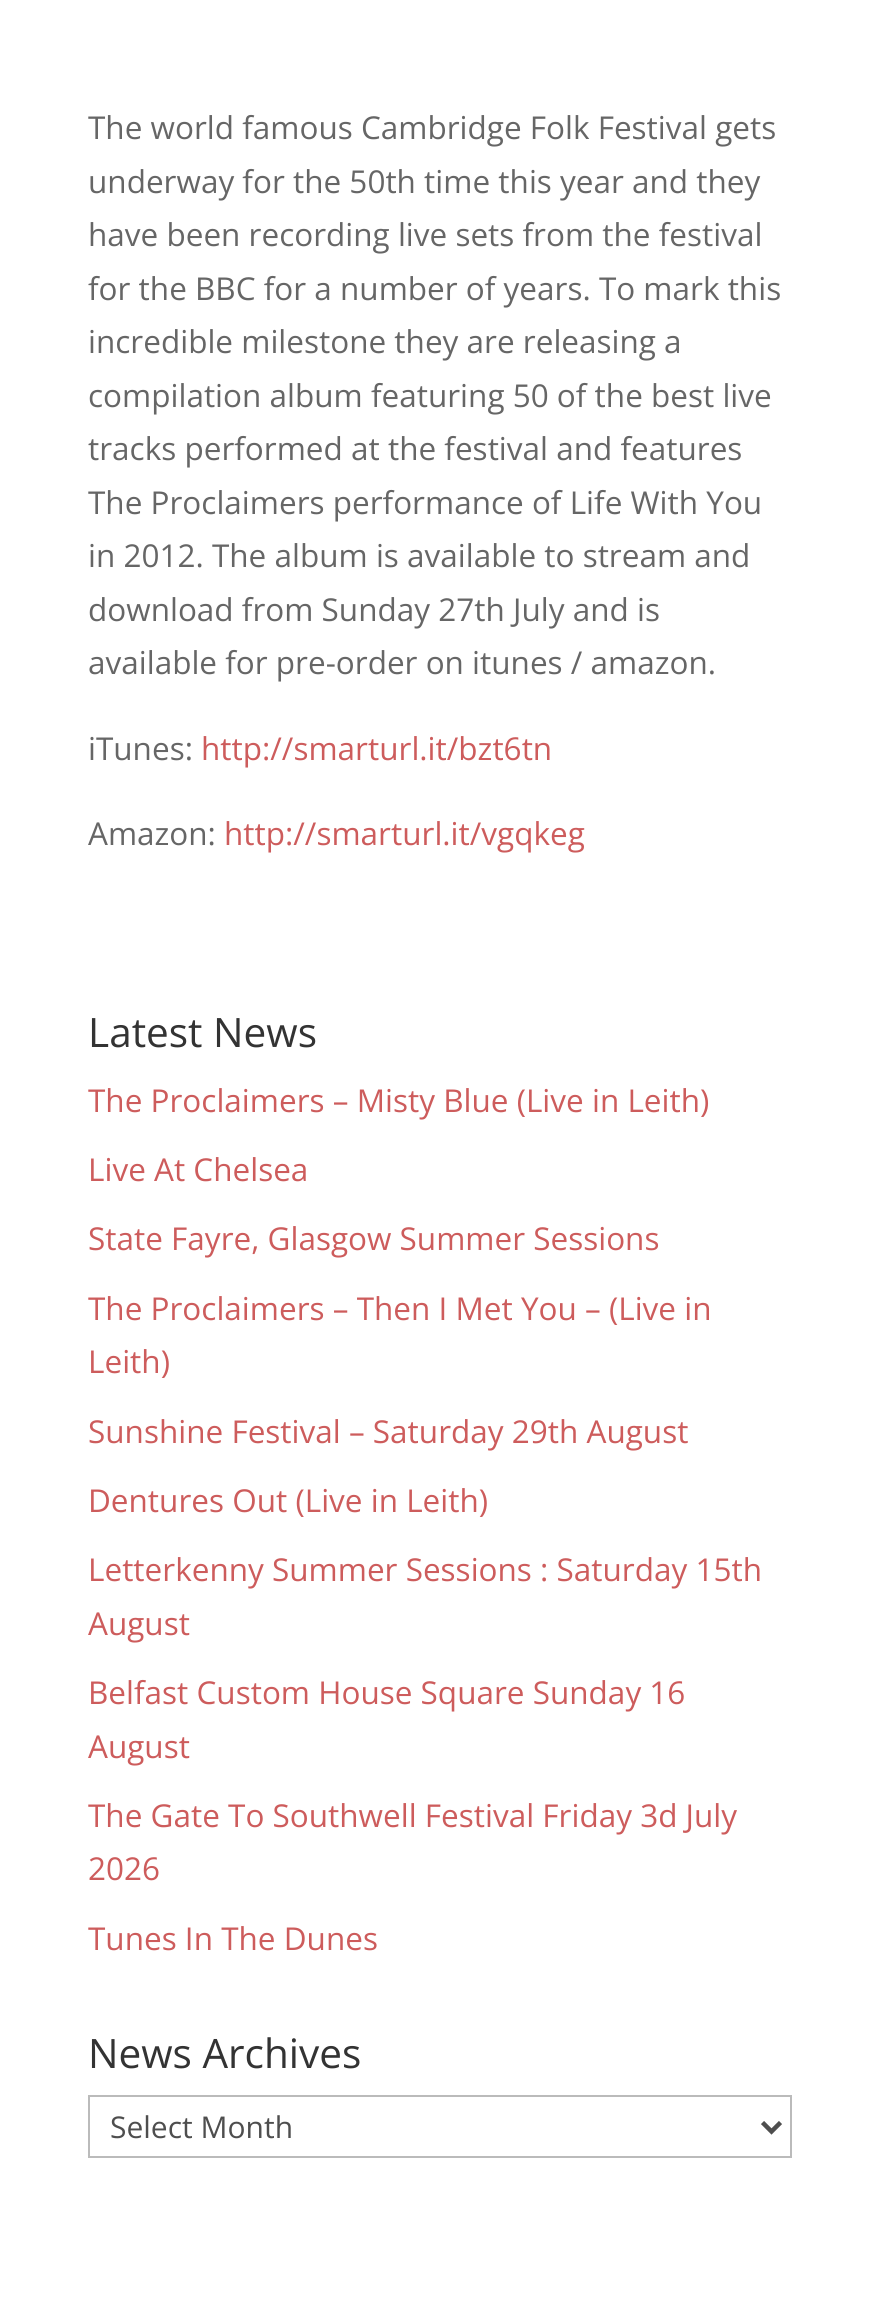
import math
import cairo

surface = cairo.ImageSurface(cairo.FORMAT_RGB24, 879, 2320)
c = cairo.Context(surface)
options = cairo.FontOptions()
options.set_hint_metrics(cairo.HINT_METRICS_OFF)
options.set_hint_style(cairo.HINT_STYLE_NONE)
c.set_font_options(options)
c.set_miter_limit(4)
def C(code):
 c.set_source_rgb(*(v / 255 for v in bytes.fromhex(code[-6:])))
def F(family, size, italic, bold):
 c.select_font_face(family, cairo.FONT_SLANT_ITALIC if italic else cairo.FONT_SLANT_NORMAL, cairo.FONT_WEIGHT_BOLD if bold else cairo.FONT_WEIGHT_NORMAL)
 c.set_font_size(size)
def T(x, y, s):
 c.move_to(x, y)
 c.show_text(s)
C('ffffff')
c.paint()
F('Open Sans',31.5,0,0)
C('666666')
T(88,139,'The world famous Cambridge Folk Festival gets')
T(88,193,'underway for the 50th time this year and they')
T(88,246,'have been recording live sets from the festival')
T(88,300,'for the BBC for a number of years. To mark this')
T(88,353,'incredible milestone they are releasing a')
T(88,407,'compilation album featuring 50 of the best live')
T(88,460,'tracks performed at the festival and features')
T(88,514,'The Proclaimers performance of Life With You')
T(88,567,'in 2012. The album is available to stream and')
T(88,621,'download from Sunday 27th July and is')
T(88,674,'available for pre-order on itunes / amazon.')
T(88,760,'iTunes:')
C('cd5c5c')
T(201,760,'http://smarturl.it/bzt6tn')
C('666666')
T(88,845,'Amazon:')
C('cd5c5c')
T(224,845,'http://smarturl.it/vgqkeg')
F('Open Sans',40.5,0,0)
C('333333')
T(88,1047,'Latest News')
F('Open Sans',31.5,0,0)
C('cd5c5c')
T(88,1112,'The Proclaimers – Misty Blue (Live in Leith)')
T(88,1181,'Live At Chelsea')
T(88,1250,'State Fayre, Glasgow Summer Sessions')
T(88,1320,'The Proclaimers – Then I Met You – (Live in')
T(88,1373,'Leith)')
T(88,1443,'Sunshine Festival – Saturday 29th August')
T(88,1512,'Dentures Out (Live in Leith)')
T(88,1581,'Letterkenny Summer Sessions : Saturday 15th')
T(88,1635,'August')
T(88,1704,'Belfast Custom House Square Sunday 16')
T(88,1758,'August')
T(88,1827,'The Gate To Southwell Festival Friday 3d July')
T(88,1880,'2026')
T(88,1950,'Tunes In The Dunes')
F('Open Sans',40.5,0,0)
C('333333')
T(88,2068,'News Archives')
c.rectangle(89,2096,702,61)
C('bbbbbb')
c.stroke()
c.new_path()
c.move_to(762.5,2122.5)
c.line_to(771.5,2131.5)
c.line_to(780.5,2122.5)
C('4e4e4e')
c.set_line_width(4.5)
c.stroke()
F('Open Sans',30,0,0)
T(110,2138,'Select Month')
surface.write_to_png('o.png')
